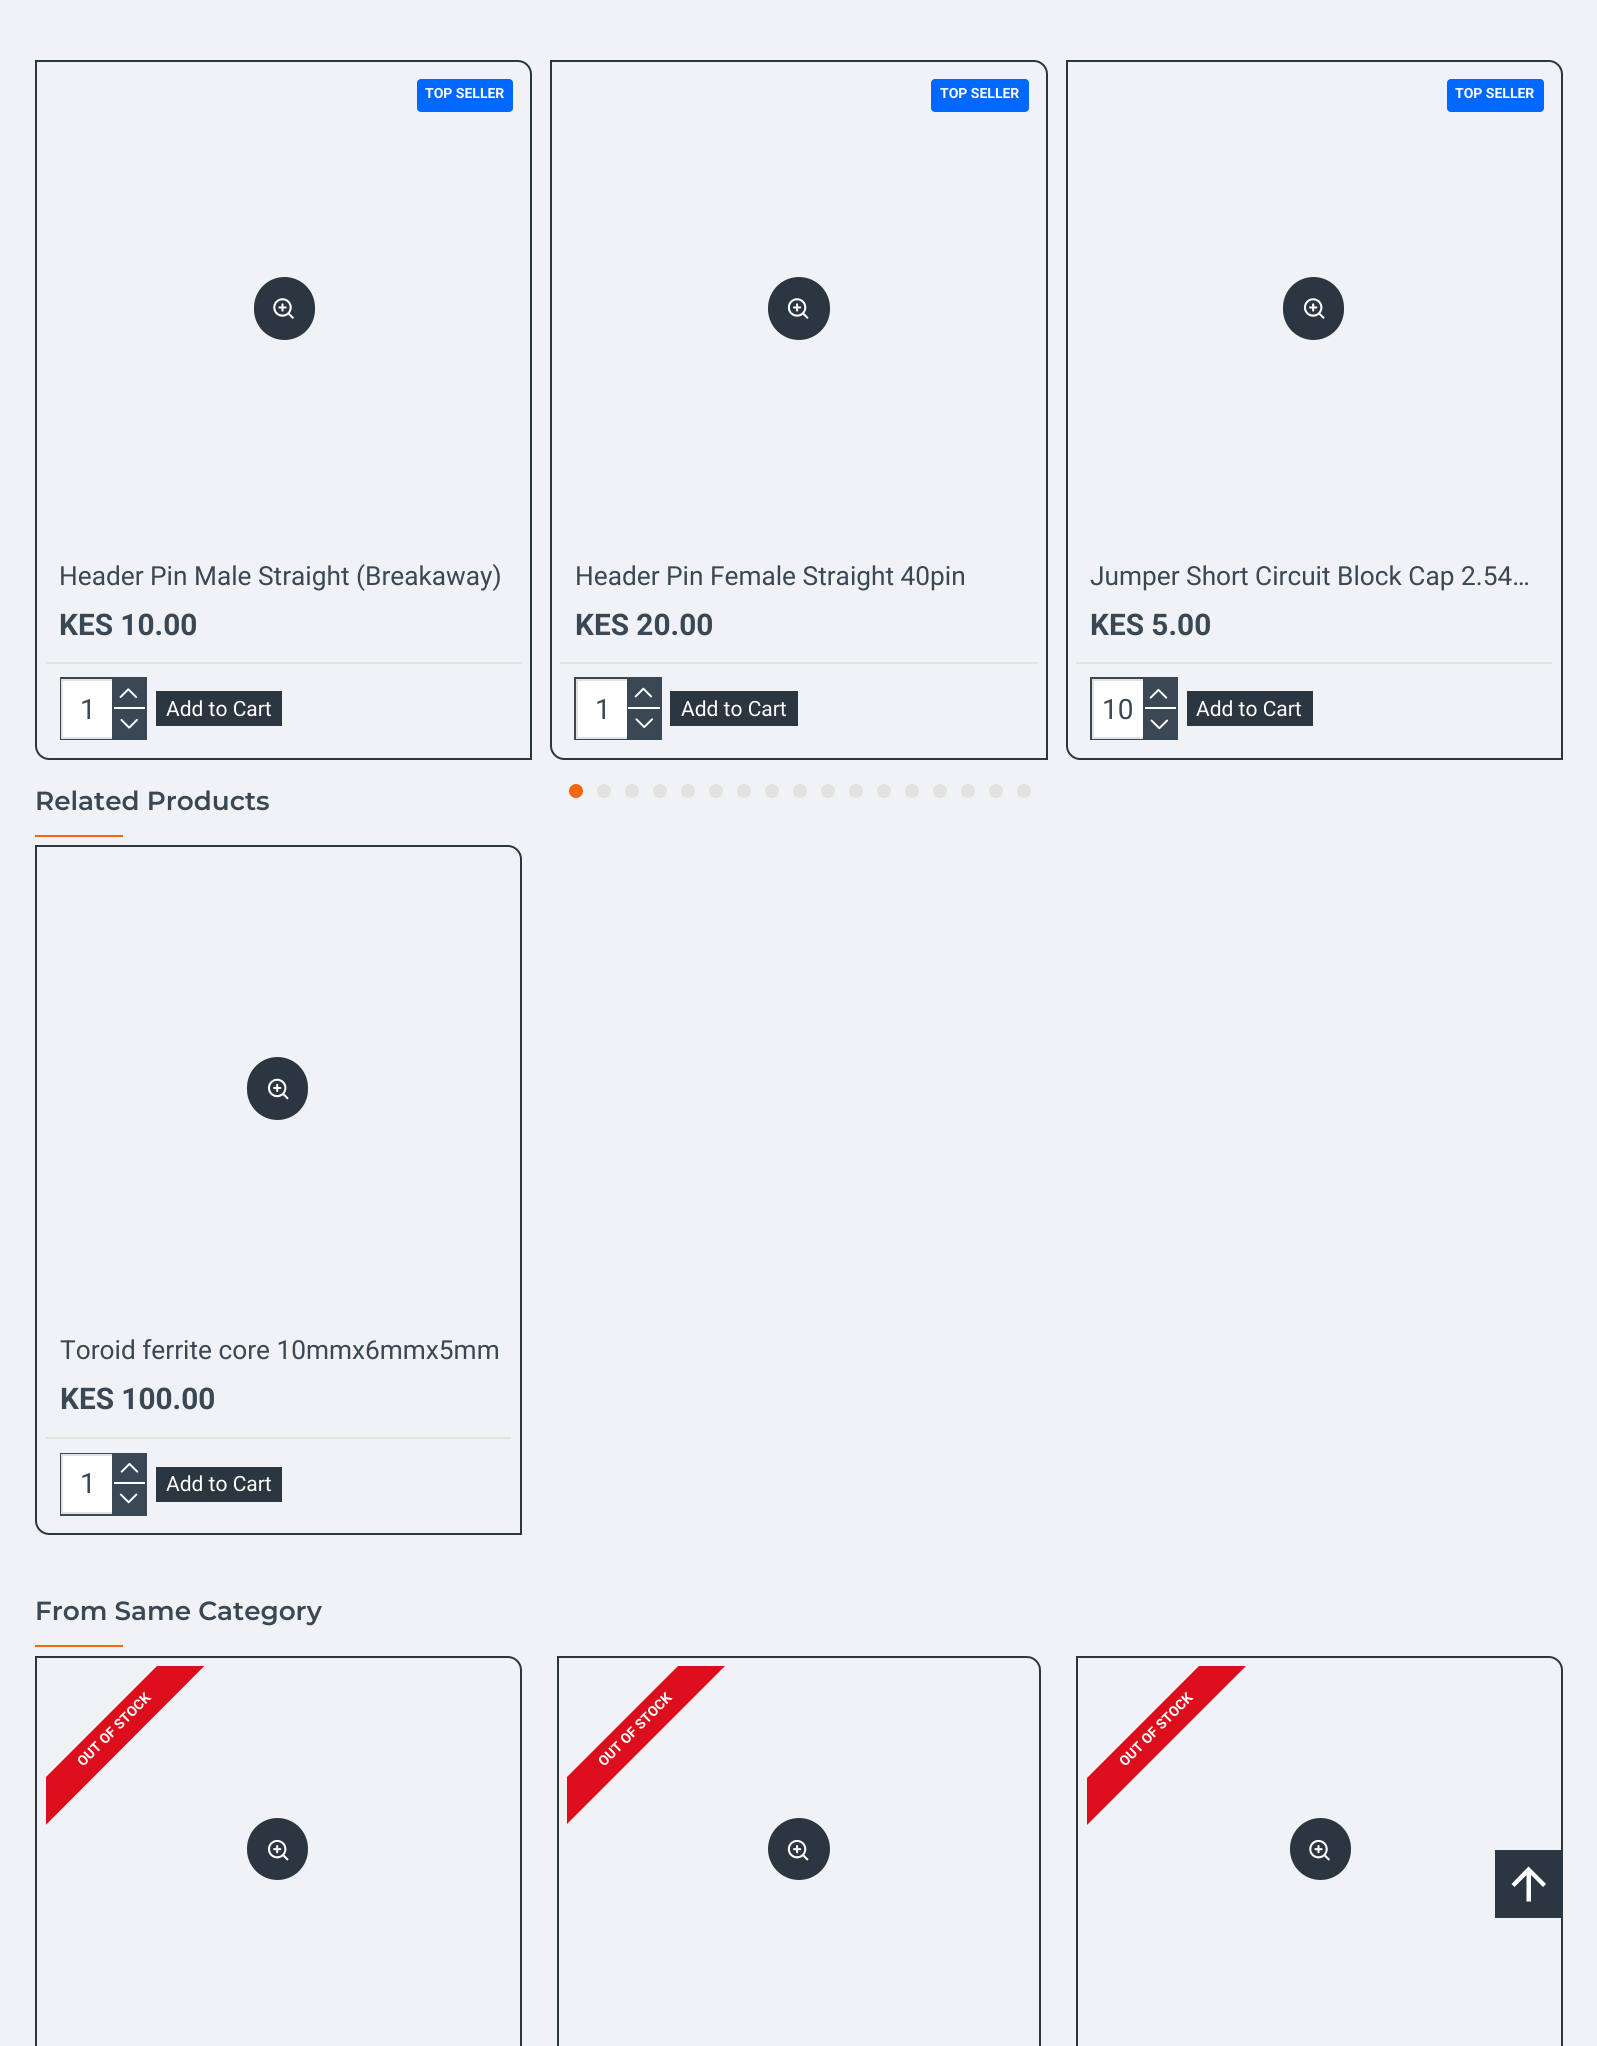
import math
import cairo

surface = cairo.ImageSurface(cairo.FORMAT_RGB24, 1597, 2046)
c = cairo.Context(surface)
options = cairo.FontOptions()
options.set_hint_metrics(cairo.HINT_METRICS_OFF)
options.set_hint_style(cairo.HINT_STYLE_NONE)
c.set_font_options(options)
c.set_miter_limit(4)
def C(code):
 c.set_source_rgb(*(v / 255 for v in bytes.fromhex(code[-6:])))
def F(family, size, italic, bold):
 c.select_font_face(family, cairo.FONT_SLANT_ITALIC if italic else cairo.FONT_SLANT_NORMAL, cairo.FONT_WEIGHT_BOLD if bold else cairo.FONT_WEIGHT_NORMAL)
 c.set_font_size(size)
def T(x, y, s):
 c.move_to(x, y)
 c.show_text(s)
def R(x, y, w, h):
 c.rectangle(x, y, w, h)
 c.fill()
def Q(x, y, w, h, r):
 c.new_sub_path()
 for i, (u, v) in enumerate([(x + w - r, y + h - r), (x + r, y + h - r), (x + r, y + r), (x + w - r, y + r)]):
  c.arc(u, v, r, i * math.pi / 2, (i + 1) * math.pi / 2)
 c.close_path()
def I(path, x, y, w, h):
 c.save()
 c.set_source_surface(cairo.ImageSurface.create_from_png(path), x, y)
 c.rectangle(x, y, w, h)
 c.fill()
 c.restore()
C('f0f2f5')
c.paint()
c.new_path()
c.move_to(36,61)
c.line_to(518,61)
c.curve_to(525,61,531,67,531,74)
c.line_to(531,759)
c.line_to(49,759)
c.curve_to(42,759,36,753,36,746)
c.close_path()
C('2c3640')
c.stroke()
C('0067ff')
Q(417,79,96,33,4)
c.fill()
F('Roboto',14,0,1)
C('ffffff')
T(425,98,'TOP SELLER')
C('2c3640')
Q(254,277,61,63,30.5)
c.fill()
I('1.png',273,298,21,21)
F('Roboto',26.25,0,0)
C('3a4754')
T(59,585,'Header Pin Male Straight (Breakaway)')
F('Roboto',29.75,0,1)
T(59,635,'KES 10.00')
C('e2e2e2')
R(46,662,476,2)
c.rectangle(61,678,85,61)
C('3a4754')
c.stroke()
C('ffffff')
R(63,681,49,56)
c.rectangle(62,680,82,58)
C('e2e2e2')
c.stroke()
F('Roboto',28,0,0)
C('3a4754')
T(80,719,'1')
R(112,679,2,60)
R(114,679,31,28)
C('ffffff')
R(114,707,31,2)
I('2.png',119,688,18,10)
C('3a4754')
R(114,709,31,30)
I('3.png',120,719,18,10)
C('2c3640')
R(156,691,126,35)
F('Roboto',21,0,0)
C('ffffff')
T(166,716,'Add to Cart')
c.new_path()
c.move_to(551,61)
c.line_to(1034,61)
c.curve_to(1041,61,1047,67,1047,74)
c.line_to(1047,759)
c.line_to(564,759)
c.curve_to(557,759,551,753,551,746)
c.close_path()
C('2c3640')
c.stroke()
C('0067ff')
Q(931,79,98,33,4)
c.fill()
F('Roboto',14,0,1)
C('ffffff')
T(940,98,'TOP SELLER')
C('2c3640')
Q(768,277,62,63,31)
c.fill()
I('4.png',787,298,22,21)
F('Roboto',26.25,0,0)
C('3a4754')
T(575,585,'Header Pin Female Straight 40pin')
F('Roboto',29.75,0,1)
T(575,635,'KES 20.00')
C('e2e2e2')
R(560,662,478,2)
c.rectangle(575,678,86,61)
C('3a4754')
c.stroke()
C('ffffff')
R(578,681,49,56)
c.rectangle(577,680,82,58)
C('e2e2e2')
c.stroke()
F('Roboto',28,0,0)
C('3a4754')
T(595,719,'1')
R(627,679,1,60)
R(628,679,32,28)
C('ffffff')
R(628,707,32,2)
I('5.png',634,687,19,11)
C('3a4754')
R(628,709,32,30)
I('6.png',635,718,18,11)
C('2c3640')
R(670,691,128,35)
F('Roboto',21,0,0)
C('ffffff')
T(681,716,'Add to Cart')
c.new_path()
c.move_to(1067,61)
c.line_to(1549,61)
c.curve_to(1556,61,1562,67,1562,74)
c.line_to(1562,759)
c.line_to(1080,759)
c.curve_to(1073,759,1067,753,1067,746)
c.close_path()
C('2c3640')
c.stroke()
C('0067ff')
Q(1447,79,97,33,4)
c.fill()
F('Roboto',14,0,1)
C('ffffff')
T(1455,98,'TOP SELLER')
C('2c3640')
Q(1283,277,61,63,30.5)
c.fill()
I('7.png',1303,298,22,21)
F('Roboto',26.25,0,0)
C('3a4754')
T(1090,585,'Jumper Short Circuit Block Cap 2.54…')
F('Roboto',29.75,0,1)
T(1090,635,'KES 5.00')
C('e2e2e2')
R(1076,662,476,2)
c.rectangle(1091,678,86,61)
C('3a4754')
c.stroke()
C('ffffff')
R(1094,681,49,56)
c.rectangle(1093,680,82,58)
C('e2e2e2')
c.stroke()
F('Roboto',28,0,0)
C('3a4754')
T(1102,719,'10')
R(1143,679,2,60)
R(1145,679,31,28)
C('ffffff')
R(1145,707,31,2)
I('8.png',1149,688,19,11)
C('3a4754')
R(1145,709,31,30)
I('9.png',1150,719,18,11)
C('2c3640')
R(1187,691,126,35)
F('Roboto',21,0,0)
C('ffffff')
T(1196,716,'Add to Cart')
C('f36710')
c.new_path()
c.arc(576,791,7,0,2 * math.pi)
c.fill()
C('e2e2e2')
c.arc(604,791,7,0,2 * math.pi)
c.fill()
c.arc(632,791,7,0,2 * math.pi)
c.fill()
c.arc(660,791,7,0,2 * math.pi)
c.fill()
c.arc(688,791,7,0,2 * math.pi)
c.fill()
c.arc(716,791,7,0,2 * math.pi)
c.fill()
c.arc(744,791,7,0,2 * math.pi)
c.fill()
c.arc(772,791,7,0,2 * math.pi)
c.fill()
c.arc(800,791,7,0,2 * math.pi)
c.fill()
c.arc(828,791,7,0,2 * math.pi)
c.fill()
c.arc(856,791,7,0,2 * math.pi)
c.fill()
c.arc(884,791,7,0,2 * math.pi)
c.fill()
c.arc(912,791,7,0,2 * math.pi)
c.fill()
c.arc(940,791,7,0,2 * math.pi)
c.fill()
c.arc(968,791,7,0,2 * math.pi)
c.fill()
c.arc(996,791,7,0,2 * math.pi)
c.fill()
c.arc(1024,791,7,0,2 * math.pi)
c.fill()
F('Montserrat SemiBold',26.25,0,0)
C('3a4754')
T(35,810,'Related Products')
C('f36710')
R(35,835,88,2)
c.new_path()
c.move_to(36,846)
c.line_to(508,846)
c.curve_to(515,846,521,852,521,859)
c.line_to(521,1534)
c.line_to(49,1534)
c.curve_to(42,1534,36,1528,36,1521)
c.close_path()
C('2c3640')
c.stroke()
Q(247,1057,61,63,30.5)
c.fill()
I('10.png',267,1078,22,22)
F('Roboto',26.25,0,0)
C('3a4754')
T(60,1359,'Toroid ferrite core 10mmx6mmx5mm')
F('Roboto',29.75,0,1)
T(60,1409,'KES 100.00')
C('e2e2e2')
R(46,1437,465,2)
c.rectangle(61,1454,85,61)
C('3a4754')
c.stroke()
C('ffffff')
R(63,1456,49,56)
c.rectangle(62,1455,82,58)
C('e2e2e2')
c.stroke()
F('Roboto',28,0,0)
C('3a4754')
T(80,1493,'1')
R(112,1454,2,60)
R(114,1454,31,28)
C('ffffff')
R(114,1482,31,2)
I('11.png',120,1462,19,11)
C('3a4754')
R(114,1484,31,30)
I('12.png',119,1493,19,11)
C('2c3640')
R(156,1467,126,35)
F('Roboto',21,0,0)
C('ffffff')
T(166,1491,'Add to Cart')
F('Montserrat SemiBold',26.25,0,0)
C('3a4754')
T(35,1620,'From Same Category')
C('f36710')
R(35,1645,88,2)
c.new_path()
c.move_to(36,1657)
c.line_to(508,1657)
c.curve_to(515,1657,521,1663,521,1670)
c.line_to(521,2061)
c.line_to(49,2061)
c.curve_to(42,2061,36,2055,36,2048)
c.close_path()
C('2c3640')
c.stroke()
c.save()
c.rectangle(46,1666,465,366)
c.clip()
C('dd0e1c')
c.new_path()
c.move_to(-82,1905)
c.line_to(289,1534)
c.line_to(313,1557)
c.line_to(-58,1929)
c.close_path()
c.fill()
c.restore()
F('Roboto',14,0,1)
C('ffffff')
c.save()
c.translate(83,1767)
c.rotate(-45 * math.pi / 180)
T(0,0,'OUT OF STOCK')
c.restore()
C('2c3640')
Q(247,1818,61,62,30.5)
c.fill()
I('13.png',267,1839,22,22)
c.new_path()
c.move_to(558,1657)
c.line_to(1027,1657)
c.curve_to(1034,1657,1040,1663,1040,1670)
c.line_to(1040,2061)
c.line_to(571,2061)
c.curve_to(564,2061,558,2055,558,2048)
c.close_path()
c.stroke()
c.save()
c.rectangle(567,1666,464,366)
c.clip()
C('dd0e1c')
c.new_path()
c.move_to(439,1905)
c.line_to(810,1534)
c.line_to(834,1557)
c.line_to(462,1929)
c.close_path()
c.fill()
c.restore()
C('ffffff')
c.save()
c.translate(604,1767)
c.rotate(-45 * math.pi / 180)
T(0,0,'OUT OF STOCK')
c.restore()
C('2c3640')
c.new_path()
c.arc(799,1849,31,0,2 * math.pi)
c.fill()
I('14.png',787,1839,22,22)
c.new_path()
c.move_to(1077,1657)
c.line_to(1549,1657)
c.curve_to(1556,1657,1562,1663,1562,1670)
c.line_to(1562,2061)
c.line_to(1090,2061)
c.curve_to(1083,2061,1077,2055,1077,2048)
c.close_path()
c.stroke()
c.save()
c.rectangle(1087,1666,465,366)
c.clip()
C('dd0e1c')
c.new_path()
c.move_to(960,1905)
c.line_to(1331,1534)
c.line_to(1355,1557)
c.line_to(983,1929)
c.close_path()
c.fill()
c.restore()
C('ffffff')
c.save()
c.translate(1125,1767)
c.rotate(-45 * math.pi / 180)
T(0,0,'OUT OF STOCK')
c.restore()
C('2c3640')
Q(1290,1818,61,62,30.5)
c.fill()
I('15.png',1309,1839,21,22)
R(1495,1850,66,68)
C('ffffff')
c.new_path()
c.move_to(1511.5,1884)
c.line_to(1528.5,1866.5)
c.line_to(1546,1884)
c.line_to(1543,1887)
c.line_to(1531,1875)
c.line_to(1531,1901.5)
c.line_to(1526.5,1901.5)
c.line_to(1526.5,1875)
c.line_to(1514.5,1887)
c.close_path()
c.fill()
surface.write_to_png('o.png')
